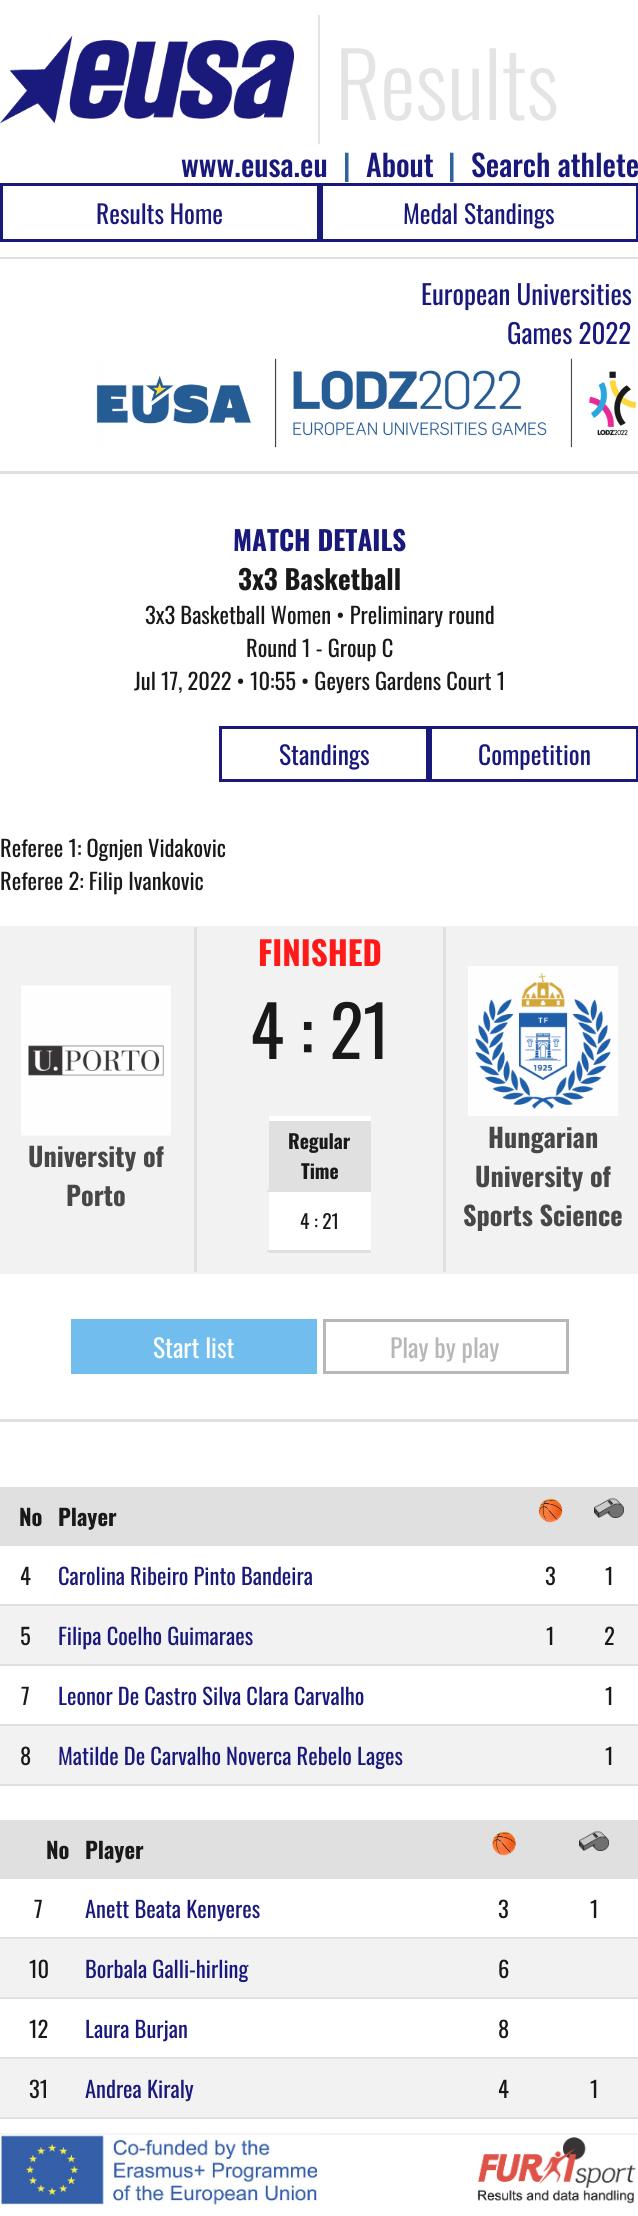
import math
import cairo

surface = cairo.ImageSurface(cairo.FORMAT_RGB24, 638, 2216)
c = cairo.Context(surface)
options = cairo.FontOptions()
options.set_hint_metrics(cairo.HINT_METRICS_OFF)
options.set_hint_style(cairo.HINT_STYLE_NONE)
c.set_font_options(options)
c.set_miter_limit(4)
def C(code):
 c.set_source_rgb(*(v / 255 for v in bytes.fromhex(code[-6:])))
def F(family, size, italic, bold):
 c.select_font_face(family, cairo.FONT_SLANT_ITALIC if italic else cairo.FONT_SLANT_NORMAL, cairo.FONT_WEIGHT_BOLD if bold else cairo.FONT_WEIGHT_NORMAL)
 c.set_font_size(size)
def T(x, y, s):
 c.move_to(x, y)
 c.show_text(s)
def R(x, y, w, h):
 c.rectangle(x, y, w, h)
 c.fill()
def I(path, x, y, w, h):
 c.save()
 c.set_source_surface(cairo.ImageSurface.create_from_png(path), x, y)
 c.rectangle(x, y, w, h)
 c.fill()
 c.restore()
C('ffffff')
c.paint()
C('e0e0e0')
R(0,257,638,2)
C('e2e2e2')
R(318,15,2,129)
I('1.png',0,35,294,89)
F('Oswald Light',88.5,0,0)
C('e4e4e4')
T(335,120,'Results')
F('Oswald Medium',30,0,0)
C('19197c')
T(181,177,'www.eusa.eu')
C('30629c')
T(343,177,'|')
C('19197c')
T(366,177,'About')
C('30629c')
T(448,177,'|')
C('19197c')
T(471,177,'Search athlete')
c.rectangle(1.5,184.5,317,56)
c.set_line_width(3)
c.stroke()
F('Oswald',25.5,0,0)
T(96,224,'Results Home')
c.rectangle(321.5,184.5,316,56)
c.stroke()
T(403,224,'Medal Standings')
C('e0e0e0')
R(0,471,638,3)
F('Oswald',27,0,0)
C('19197c')
T(421,305,'European Universities')
T(507,344,'Games 2022')
I('2.png',96,358,540,90)
F('Oswald',27,0,1)
T(233,551,'MATCH DETAILS')
C('191919')
T(238,590,'3x3 Basketball')
F('Oswald',22.5,0,0)
T(145,624,'3x3 Basketball Women • Preliminary round')
T(246,657,'Round 1 - Group C')
T(134,690,'Jul 17, 2022 • 10:55 • Geyers Gardens Court 1')
c.rectangle(220.5,727.5,207,53)
C('19197c')
c.stroke()
F('Oswald',25.5,0,0)
T(279,765,'Standings')
c.rectangle(430.5,727.5,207,53)
c.stroke()
T(478,765,'Competition')
F('Oswald',22.5,0,0)
C('191919')
T(0,857,'Referee 1: Ognjen Vidakovic')
T(0,890,'Referee 2: Filip Ivankovic')
C('f2f2f2')
R(0,926,638,348)
I('3.png',21,985,150,151)
F('Oswald',26.25,0,1)
C('474747')
T(28,1167,'University of')
T(66,1206,'Porto')
C('e0e0e0')
R(443,927,3,345)
R(194,927,3,345)
F('Oswald',33,0,1)
C('ff1919')
T(258,966,'FINISHED')
F('Oswald',70,0,0)
C('191919')
T(250,1059,'4 : 21')
C('e0e0e0')
R(269,1252,102,1)
C('ffffff')
R(269,1116,102,5)
C('e0e0e0')
R(267,1190,104,2)
R(269,1121,102,69)
F('Oswald',19.5,0,1)
C('191919')
T(288,1149,'Regular')
T(301,1179,'Time')
C('ffffff')
R(269,1192,102,58)
C('e0e0e0')
R(267,1250,104,2)
F('Oswald',19.5,0,0)
C('191919')
T(300,1229,'4 : 21')
I('4.png',468,966,150,150)
F('Oswald',26.25,0,1)
C('474747')
T(488,1148,'Hungarian')
T(475,1187,'University of')
T(463,1226,'Sports Science')
C('e0e0e0')
R(0,1419,638,3)
C('71beee')
R(71,1319,246,55)
F('Oswald',25.5,0,0)
C('ffffff')
T(153,1358,'Start list')
c.rectangle(324.5,1320.5,243,52)
C('b7b7b7')
c.stroke()
T(390,1358,'Play by play')
C('e0e0e0')
R(0,1487,638,59)
F('Oswald',22.5,0,1)
C('191919')
T(19,1526,'No')
T(58,1526,'Player')
I('5.png',538,1498,25,25)
I('6.png',594,1498,30,20)
C('e0e0e0')
R(0,1604,638,2)
F('Oswald',22.5,0,0)
C('191919')
T(20,1585,'4')
C('19197c')
T(58,1585,'Carolina Ribeiro Pinto Bandeira')
C('191919')
T(545,1585,'3')
T(605,1585,'1')
C('f2f2f2')
R(0,1606,638,58)
C('e0e0e0')
R(0,1664,638,2)
C('191919')
T(20,1645,'5')
C('19197c')
T(58,1645,'Filipa Coelho Guimaraes')
C('191919')
T(546,1645,'1')
T(604,1645,'2')
C('e0e0e0')
R(0,1724,638,2)
C('191919')
T(21,1705,'7')
C('19197c')
T(58,1705,'Leonor De Castro Silva Clara Carvalho')
C('191919')
T(605,1705,'1')
C('f2f2f2')
R(0,1726,638,58)
C('e0e0e0')
R(0,1784,638,2)
C('191919')
T(20,1765,'8')
C('19197c')
T(58,1765,'Matilde De Carvalho Noverca Rebelo Lages')
C('191919')
T(605,1765,'1')
C('e0e0e0')
R(0,1820,638,59)
F('Oswald',22.5,0,1)
C('191919')
T(46,1859,'No')
T(85,1859,'Player')
I('7.png',492,1831,24,25)
I('6.png',579,1831,30,20)
C('e0e0e0')
R(0,1937,638,2)
F('Oswald',22.5,0,0)
C('191919')
T(34,1918,'7')
C('19197c')
T(85,1918,'Anett Beata Kenyeres')
C('191919')
T(498,1918,'3')
T(590,1918,'1')
C('f2f2f2')
R(0,1939,638,58)
C('e0e0e0')
R(0,1997,638,2)
C('191919')
T(29,1978,'10')
C('19197c')
T(85,1978,'Borbala Galli-hirling')
C('191919')
T(498,1978,'6')
C('e0e0e0')
R(0,2057,638,2)
C('191919')
T(29,2038,'12')
C('19197c')
T(85,2038,'Laura Burjan')
C('191919')
T(498,2038,'8')
C('f2f2f2')
R(0,2059,638,58)
C('e0e0e0')
R(0,2117,638,2)
C('191919')
T(29,2098,'31')
C('19197c')
T(85,2098,'Andrea Kiraly')
C('191919')
T(498,2098,'4')
T(590,2098,'1')
C('f3f3f3')
R(0,2133,638,2)
I('8.png',0,2134,319,71)
I('9.png',477,2137,159,67)
surface.write_to_png('o.png')
